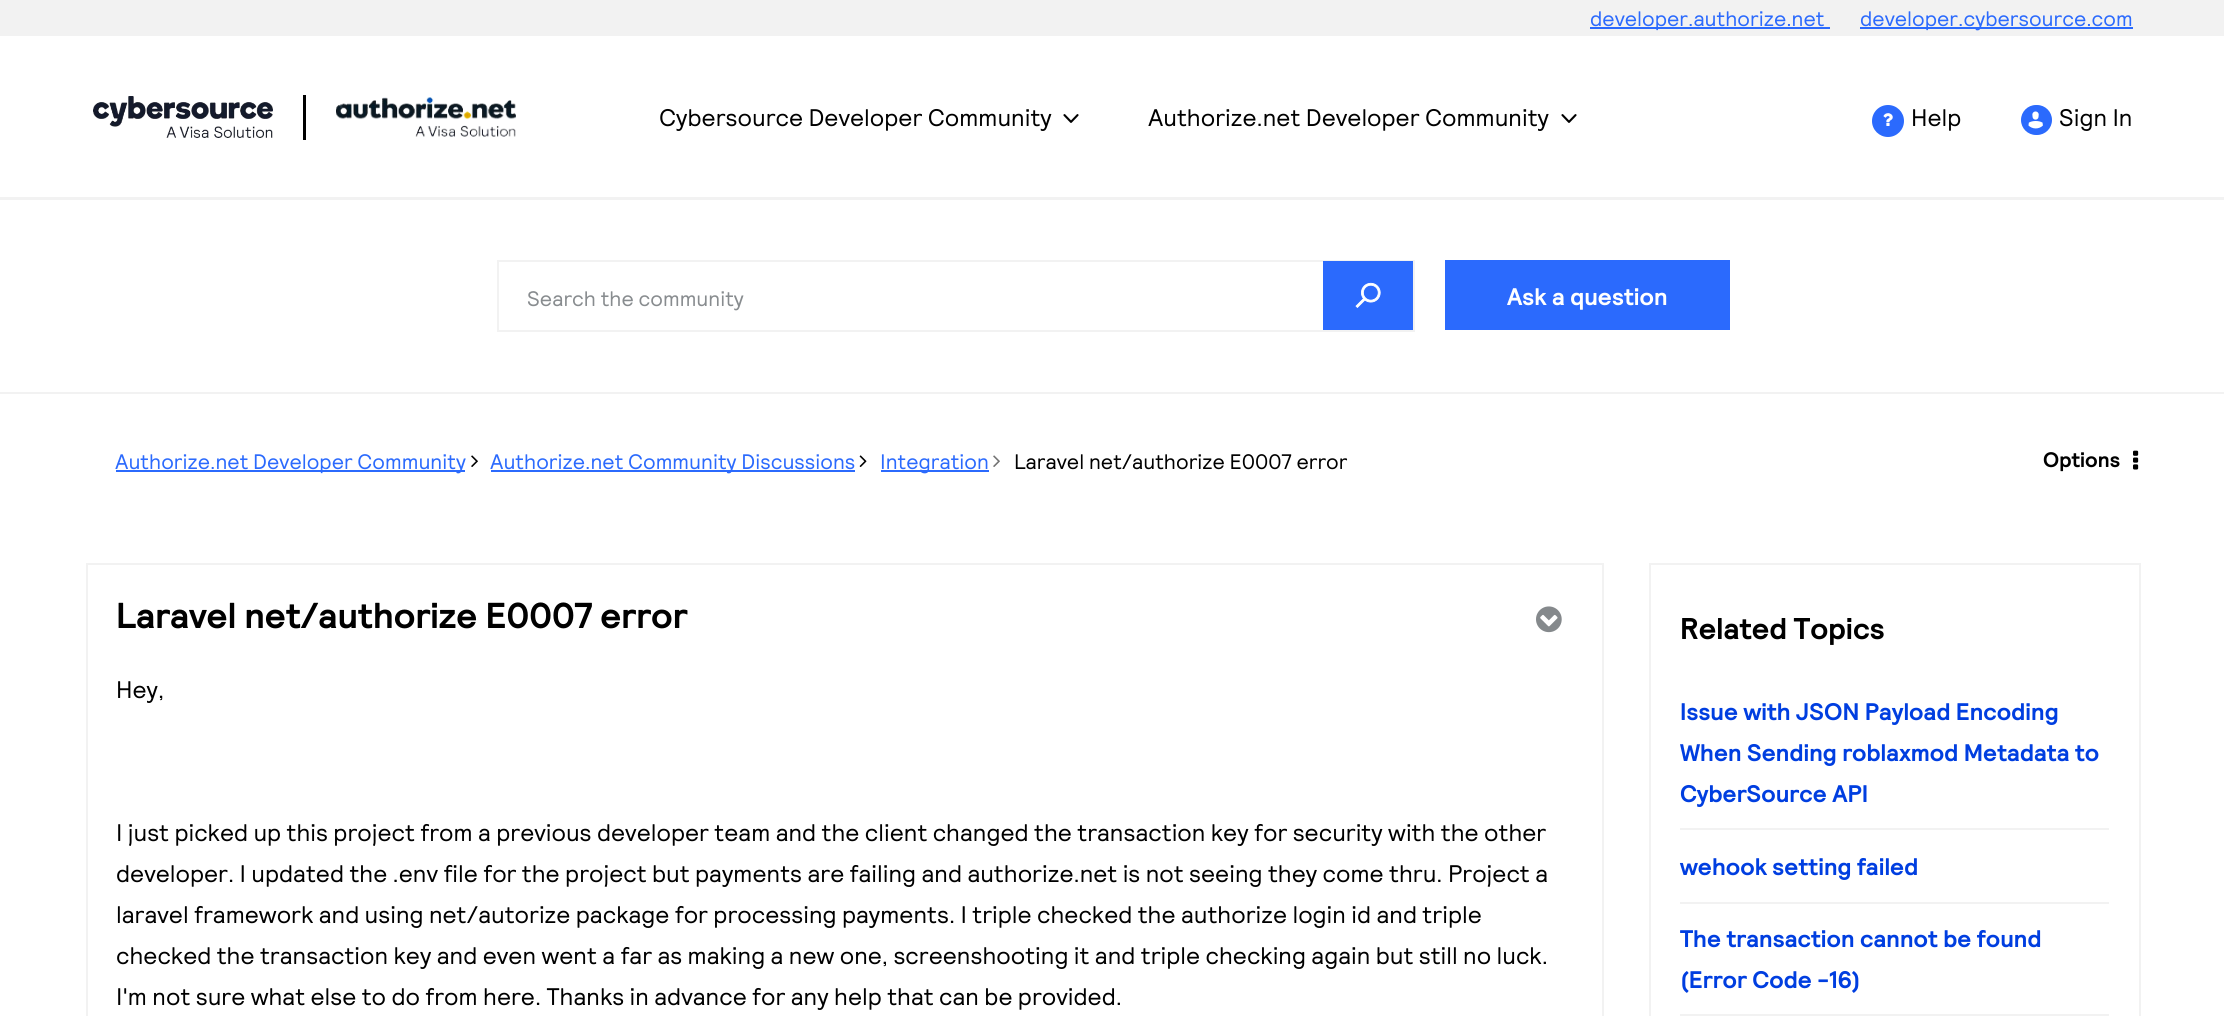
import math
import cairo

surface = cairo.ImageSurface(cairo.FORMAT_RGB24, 2224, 1016)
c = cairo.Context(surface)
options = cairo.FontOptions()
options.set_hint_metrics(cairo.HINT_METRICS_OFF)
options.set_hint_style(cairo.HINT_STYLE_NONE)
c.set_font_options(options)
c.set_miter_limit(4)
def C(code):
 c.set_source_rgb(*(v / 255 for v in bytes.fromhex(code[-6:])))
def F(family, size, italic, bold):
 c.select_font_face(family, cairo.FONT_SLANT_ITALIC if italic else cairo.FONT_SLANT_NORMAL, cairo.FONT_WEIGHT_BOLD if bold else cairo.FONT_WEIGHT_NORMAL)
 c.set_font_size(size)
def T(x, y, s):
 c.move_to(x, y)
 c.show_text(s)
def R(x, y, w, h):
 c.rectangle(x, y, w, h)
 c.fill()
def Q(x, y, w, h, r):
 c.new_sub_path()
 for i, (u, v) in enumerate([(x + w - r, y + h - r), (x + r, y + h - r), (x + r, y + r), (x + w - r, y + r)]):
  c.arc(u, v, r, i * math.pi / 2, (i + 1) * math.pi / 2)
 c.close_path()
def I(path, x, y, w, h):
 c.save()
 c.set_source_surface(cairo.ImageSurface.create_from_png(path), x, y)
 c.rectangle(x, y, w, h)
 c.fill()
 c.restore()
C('ffffff')
c.paint()
C('f2f2f2')
R(0,0,2224,36)
C('2b6afd')
R(1590,27,240,2)
F('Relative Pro',21,0,0)
T(1590,26,'developer.authorize.net')
R(1860,27,273,2)
T(1860,26,'developer.cybersource.com')
C('f2f2f2')
R(0,197,2224,3)
I('1.png',93,96,180,42)
C('000000')
R(303,95,3,45)
I('2.png',336,97,180,40)
F('Relative Pro',24,0,0)
T(659,126,'Cybersource Developer Community')
I('3.png',1063,114,16,9)
T(1148,126,'Authorize.net Developer Community')
I('3.png',1561,114,16,9)
C('2b6afd')
c.arc(1888,121,16,0,2 * math.pi)
c.fill()
I('4.png',1883,113,10,13)
C('000000')
T(1911,126,'Help')
C('2b6afd')
Q(2021,105,31,30,15)
c.fill()
I('5.png',2028,111,15,18)
C('000000')
T(2059,126,'Sign In')
C('f2f2f2')
R(0,392,2224,2)
c.rectangle(498,261,916,70)
c.stroke()
F('Relative Pro',21,0,0)
C('888c8f')
T(527,306,'Search the community')
C('2b6afd')
R(1323,261,90,69)
I('6.png',1355,282,26,26)
R(1445,260,285,70)
F('Relative Pro',24,0,1)
C('ffffff')
T(1507,305,'Ask a question')
C('2b6afd')
R(116,470,349,2)
F('Relative Pro',21,0,0)
T(115,469,'Authorize.net Developer Community')
I('7.png',471,455,7,12)
R(491,470,364,2)
T(490,469,'Authorize.net Community Discussions')
I('8.png',859,455,8,12)
R(881,470,108,2)
T(880,469,'Integration')
I('9.png',993,455,7,12)
C('000000')
T(1014,469,'Laravel net/authorize E0007 error')
F('Relative Pro',21,0,1)
T(2043,467,'Options')
I('10.png',2133,450,6,20)
c.rectangle(87,564,1516,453)
C('f2f2f2')
c.stroke()
F('Relative Pro',36,0,1)
C('000000')
T(116,628,'Laravel net/authorize E0007 error')
I('11.png',1536,606,26,27)
F('Relative Pro',24,0,0)
T(116,698,'Hey,')
T(116,841,'I just picked up this project from a previous developer team and the client changed the transaction key for security with the other')
T(116,882,'developer. I updated the .env file for the project but payments are failing and authorize.net is not seeing they come thru. Project a')
T(116,923,'laravel framework and using net/autorize package for processing payments. I triple checked the authorize login id and triple')
T(116,964,'checked the transaction key and even went a far as making a new one, screenshooting it and triple checking again but still no luck.')
T(116,1005,'I\'m not sure what else to do from here. Thanks in advance for any help that can be provided.')
c.rectangle(1650,564,490,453)
C('f2f2f2')
c.stroke()
F('Relative Pro',30,0,1)
C('000000')
T(1680,639,'Related Topics')
C('f2f2f2')
R(1680,828,429,2)
F('Relative Pro',24,0,1)
C('003ee0')
T(1680,720,'Issue with JSON Payload Encoding')
T(1680,761,'When Sending roblaxmod Metadata to')
T(1680,802,'CyberSource API')
C('f2f2f2')
R(1680,902,429,2)
C('003ee0')
T(1680,875,'wehook setting failed')
C('f2f2f2')
R(1680,1014,429,2)
C('003ee0')
T(1680,947,'The transaction cannot be found')
T(1680,988,'(Error Code -16)')
surface.write_to_png('o.png')
